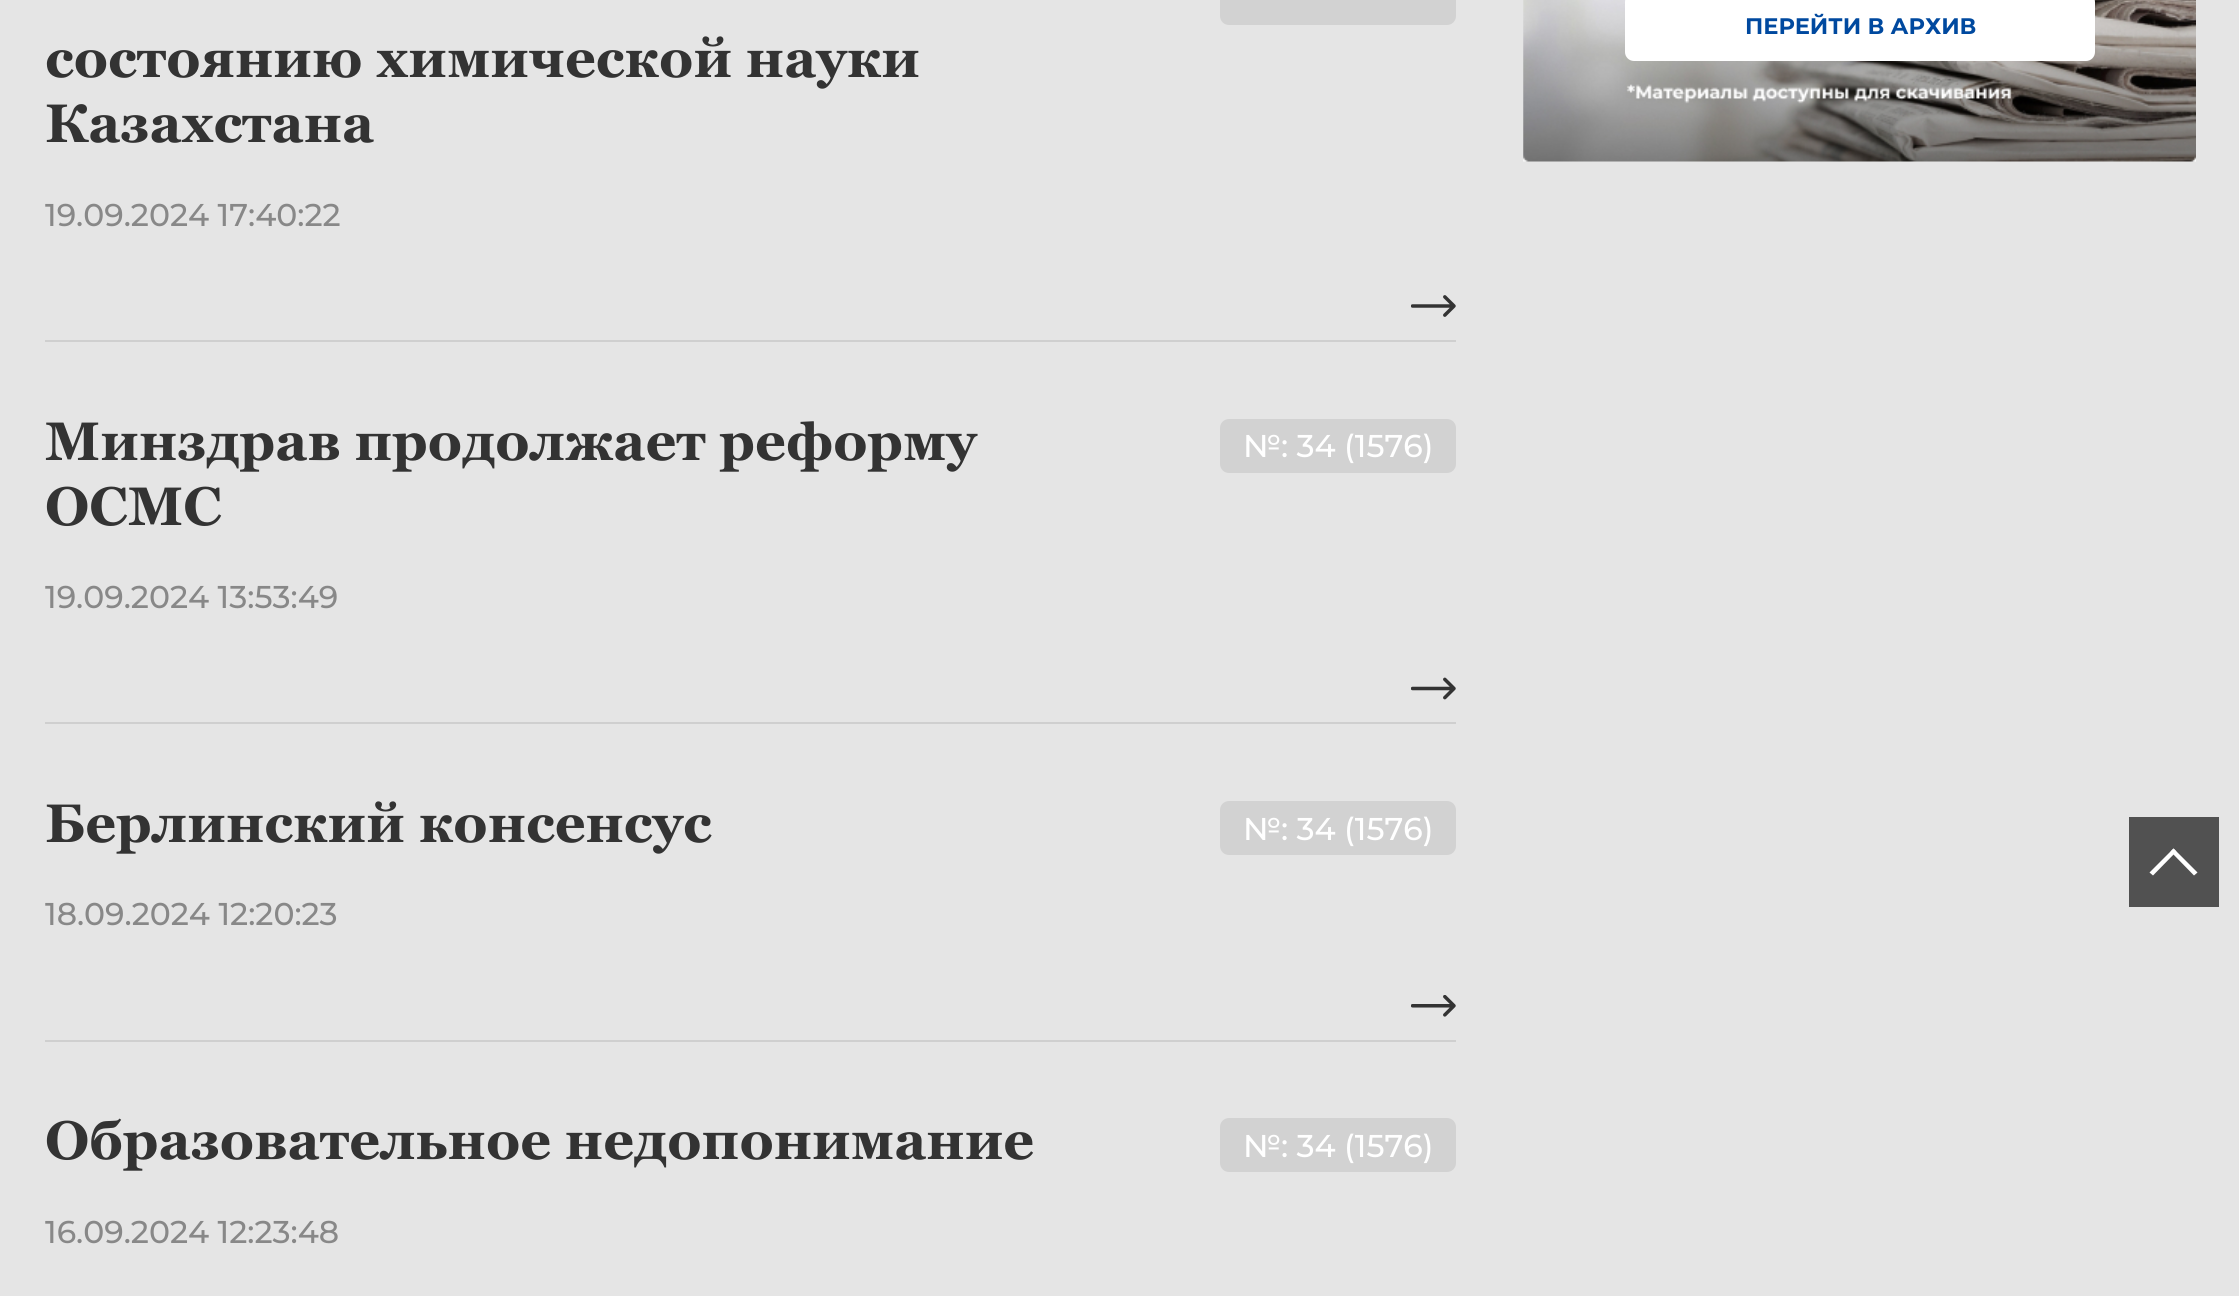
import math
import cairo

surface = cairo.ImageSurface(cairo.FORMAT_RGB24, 2239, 1296)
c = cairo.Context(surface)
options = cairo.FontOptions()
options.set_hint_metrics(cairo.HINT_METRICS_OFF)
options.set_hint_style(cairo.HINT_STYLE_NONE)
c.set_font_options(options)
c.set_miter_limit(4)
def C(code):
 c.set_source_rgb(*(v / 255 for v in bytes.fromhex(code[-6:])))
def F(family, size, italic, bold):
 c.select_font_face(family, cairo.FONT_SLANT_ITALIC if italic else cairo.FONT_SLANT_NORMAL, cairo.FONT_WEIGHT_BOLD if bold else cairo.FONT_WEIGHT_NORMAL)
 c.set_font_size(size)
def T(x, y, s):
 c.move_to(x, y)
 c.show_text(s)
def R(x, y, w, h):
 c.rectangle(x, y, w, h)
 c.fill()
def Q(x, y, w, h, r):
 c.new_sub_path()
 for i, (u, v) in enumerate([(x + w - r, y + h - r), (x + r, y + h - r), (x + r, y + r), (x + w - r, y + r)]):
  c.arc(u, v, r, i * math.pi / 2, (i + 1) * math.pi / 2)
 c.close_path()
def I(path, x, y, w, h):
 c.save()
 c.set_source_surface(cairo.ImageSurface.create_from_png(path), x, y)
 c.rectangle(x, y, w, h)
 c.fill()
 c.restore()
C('e5e5e5')
c.paint()
I('1.png',1523,0,673,162)
C('ffffff')
Q(1625,-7,470,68,9)
c.fill()
F('Montserrat',22.5,0,1)
C('00499f')
T(1745,34,'ПЕРЕЙТИ В АРХИВ')
C('d2d2d2')
Q(1220,-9,236,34,9)
c.fill()
F('Georgia',54,0,1)
C('333333')
T(45,77,'состоянию химической науки')
T(45,142,'Казахстана')
F('Montserrat Medium',31.5,0,0)
C('888888')
T(45,226,'19.09.2024 17:40:22')
I('2.png',1411,295,45,22)
C('cfcfcf')
R(45,340,1411,2)
F('Georgia',54,0,1)
C('333333')
T(45,460,'Минздрав продолжает реформу')
T(45,525,'ОСМС')
C('d2d2d2')
Q(1220,419,236,54,9)
c.fill()
F('Montserrat Medium',31.5,0,0)
C('ffffff')
T(1243,457,'№: 34 (1576)')
C('888888')
T(45,608,'19.09.2024 13:53:49')
I('3.png',1411,677,45,23)
C('cfcfcf')
R(45,722,1411,2)
F('Georgia',54,0,1)
C('333333')
T(45,842,'Берлинский консенсус')
C('d2d2d2')
Q(1220,801,236,54,9)
c.fill()
F('Montserrat Medium',31.5,0,0)
C('ffffff')
T(1243,840,'№: 34 (1576)')
C('888888')
T(45,925,'18.09.2024 12:20:23')
I('4.png',1411,995,45,22)
C('cfcfcf')
R(45,1040,1411,2)
F('Georgia',54,0,1)
C('333333')
T(45,1159,'Образовательное недопонимание')
C('d2d2d2')
Q(1220,1118,236,54,9)
c.fill()
F('Montserrat Medium',31.5,0,0)
C('ffffff')
T(1243,1157,'№: 34 (1576)')
C('888888')
T(45,1243,'16.09.2024 12:23:48')
C('515151')
R(2129,817,90,90)
C('ffffff')
c.new_path()
c.move_to(2173.5,848.5)
c.line_to(2197.5,872.5)
c.line_to(2194,875.5)
c.line_to(2170.5,851.5)
c.close_path()
c.fill()
c.new_path()
c.move_to(2173.5,848.5)
c.line_to(2176.5,851.5)
c.line_to(2153,875.5)
c.line_to(2149.5,872.5)
c.close_path()
c.fill()
surface.write_to_png('o.png')
